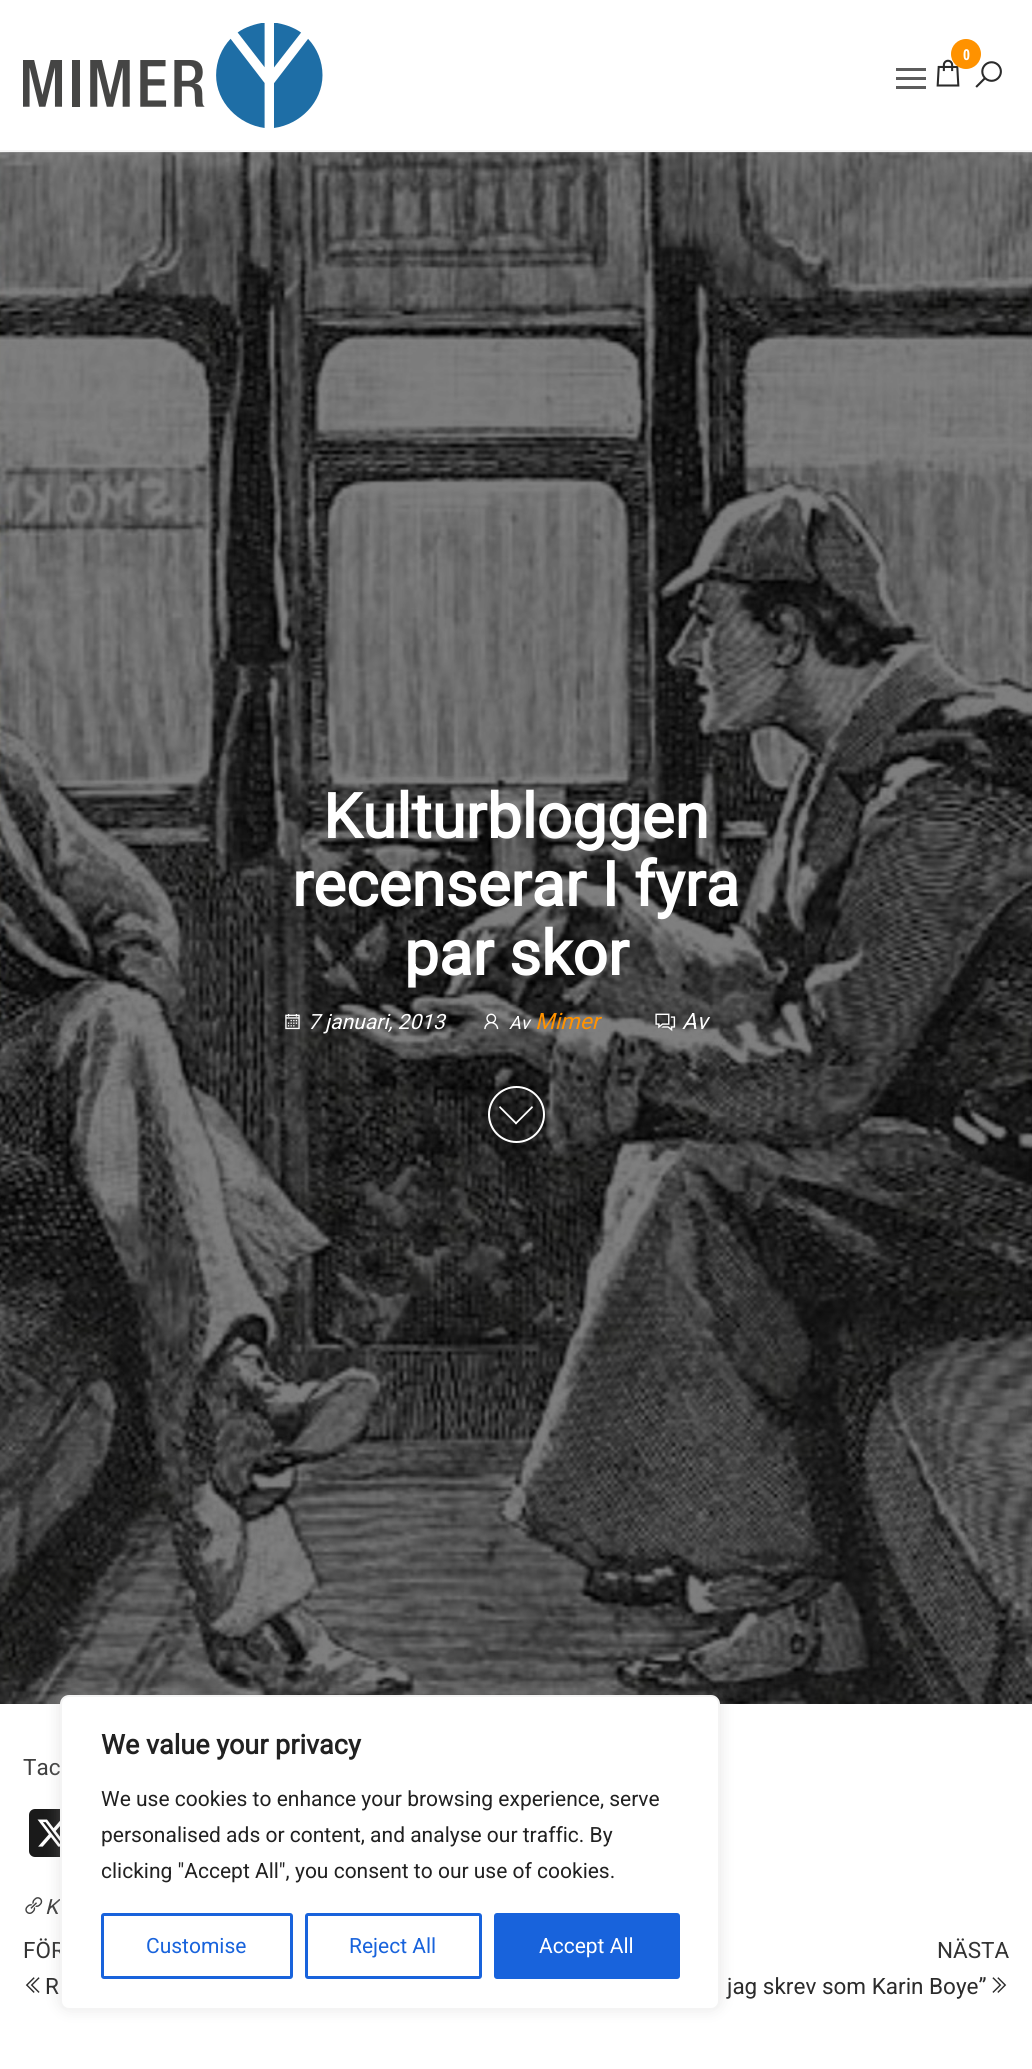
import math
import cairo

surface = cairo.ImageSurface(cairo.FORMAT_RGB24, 1032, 2069)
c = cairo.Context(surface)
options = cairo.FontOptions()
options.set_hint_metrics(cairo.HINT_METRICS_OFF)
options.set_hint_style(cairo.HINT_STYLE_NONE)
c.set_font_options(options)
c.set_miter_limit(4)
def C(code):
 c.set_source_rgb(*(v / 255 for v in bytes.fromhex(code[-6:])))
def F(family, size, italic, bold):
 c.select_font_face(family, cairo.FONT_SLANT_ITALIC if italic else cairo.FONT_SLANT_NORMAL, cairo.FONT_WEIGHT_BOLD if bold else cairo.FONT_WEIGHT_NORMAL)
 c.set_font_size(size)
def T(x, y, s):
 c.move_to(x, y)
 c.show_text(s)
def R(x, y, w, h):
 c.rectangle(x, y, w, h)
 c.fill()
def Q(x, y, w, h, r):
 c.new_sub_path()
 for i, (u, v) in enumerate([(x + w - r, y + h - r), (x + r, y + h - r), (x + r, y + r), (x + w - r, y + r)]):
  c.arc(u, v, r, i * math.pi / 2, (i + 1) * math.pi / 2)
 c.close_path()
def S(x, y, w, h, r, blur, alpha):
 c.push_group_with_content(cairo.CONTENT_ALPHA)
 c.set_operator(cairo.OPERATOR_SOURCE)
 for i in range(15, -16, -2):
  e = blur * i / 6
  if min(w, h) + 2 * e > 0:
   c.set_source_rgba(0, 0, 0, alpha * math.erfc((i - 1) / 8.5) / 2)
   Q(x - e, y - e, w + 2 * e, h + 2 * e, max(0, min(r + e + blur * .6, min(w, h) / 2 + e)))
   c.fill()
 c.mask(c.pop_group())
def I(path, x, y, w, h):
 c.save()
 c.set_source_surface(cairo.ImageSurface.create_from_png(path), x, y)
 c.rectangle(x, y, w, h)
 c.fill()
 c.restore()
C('ffffff')
c.paint()
C('f6f6f6')
R(0,150,1032,2)
I('1.png',23,23,300,105)
I('2.png',936,59,24,28)
C('ff9200')
c.arc(966,54,15,0,2 * math.pi)
c.fill()
F('Open Sans Condensed',15,0,1)
C('ffffff')
T(963,60,'0')
C('5c5c5c')
R(896,77,30,3)
R(896,68,30,3)
R(896,86,30,3)
I('3.png',975,61,27,27)
I('4.png',0,152,1032,1)
I('5.png',0,152,1032,1552)
F('Roboto',62,0,1)
C('ffffff')
T(323,838,'Kulturbloggen')
T(292,906,'recenserar I fyra')
T(404,975,'par skor')
I('6.png',285,1014,15,16)
F('Roboto',21,1,0)
T(308,1029,'7 januari, 2013')
I('7.png',484,1013,15,17)
F('Roboto',18,1,0)
T(509,1029,'Av')
F('Roboto',22.5,1,0)
C('ff9200')
T(535,1029,'Mimer')
I('8.png',655,1013,21,19)
C('ffffff')
T(682,1029,'Av')
c.new_path()
c.arc(516.5,1114.5,27.5,0,2 * math.pi)
c.stroke()
c.new_path()
c.move_to(515,1123)
c.line_to(532,1106)
c.line_to(533,1107.5)
c.line_to(516,1124.5)
c.close_path()
c.fill()
c.new_path()
c.move_to(499,1107.5)
c.line_to(500,1106)
c.line_to(517,1123)
c.line_to(516,1124.5)
c.close_path()
c.fill()
F('Roboto',22.5,0,0)
C('404040')
T(23,1775,'Tac')
C('1a1a1a')
Q(29,1809,48,48,6)
c.fill()
I('9.png',37,1819,23,28)
I('10.png',25,1897,18,17)
F('Roboto',21,1,0)
C('404040')
T(45,1914,'K')
F('Roboto',22.5,0,0)
C('333333')
T(23,1958,'FÖR')
I('11.png',25,1977,15,16)
C('2b2b2b')
T(45,1994,'R')
C('333333')
T(937,1958,'NÄSTA')
C('2b2b2b')
T(727,1994,'jag skrev som Karin Boye”')
I('12.png',992,1977,15,16)
C('acabab')
S(60,1694,660,315,9,7.5,.3)
C('ffffff')
Q(61,1696,658,313,8)
c.fill_preserve()
C('f4f4f4')
c.stroke()
F('Roboto',27,0,1)
C('212121')
T(101,1754,'We value your privacy')
F('Roboto',21,0,0)
T(101,1806,'We use cookies to enhance your browsing experience, serve')
T(101,1842,'personalised ads or content, and analyse our traffic. By')
T(101,1878,'clicking "Accept All", you consent to our use of cookies.')
Q(102.5,1914.5,189,63,1.5)
C('1863dc')
c.set_line_width(3)
c.stroke()
T(146,1953,'Customise')
Q(306.5,1914.5,174,63,1.5)
c.stroke()
T(349,1953,'Reject All')
Q(495.5,1914.5,183,63,1.5)
c.fill_preserve()
c.stroke()
C('ffffff')
T(539,1953,'Accept All')
surface.write_to_png('o.png')
